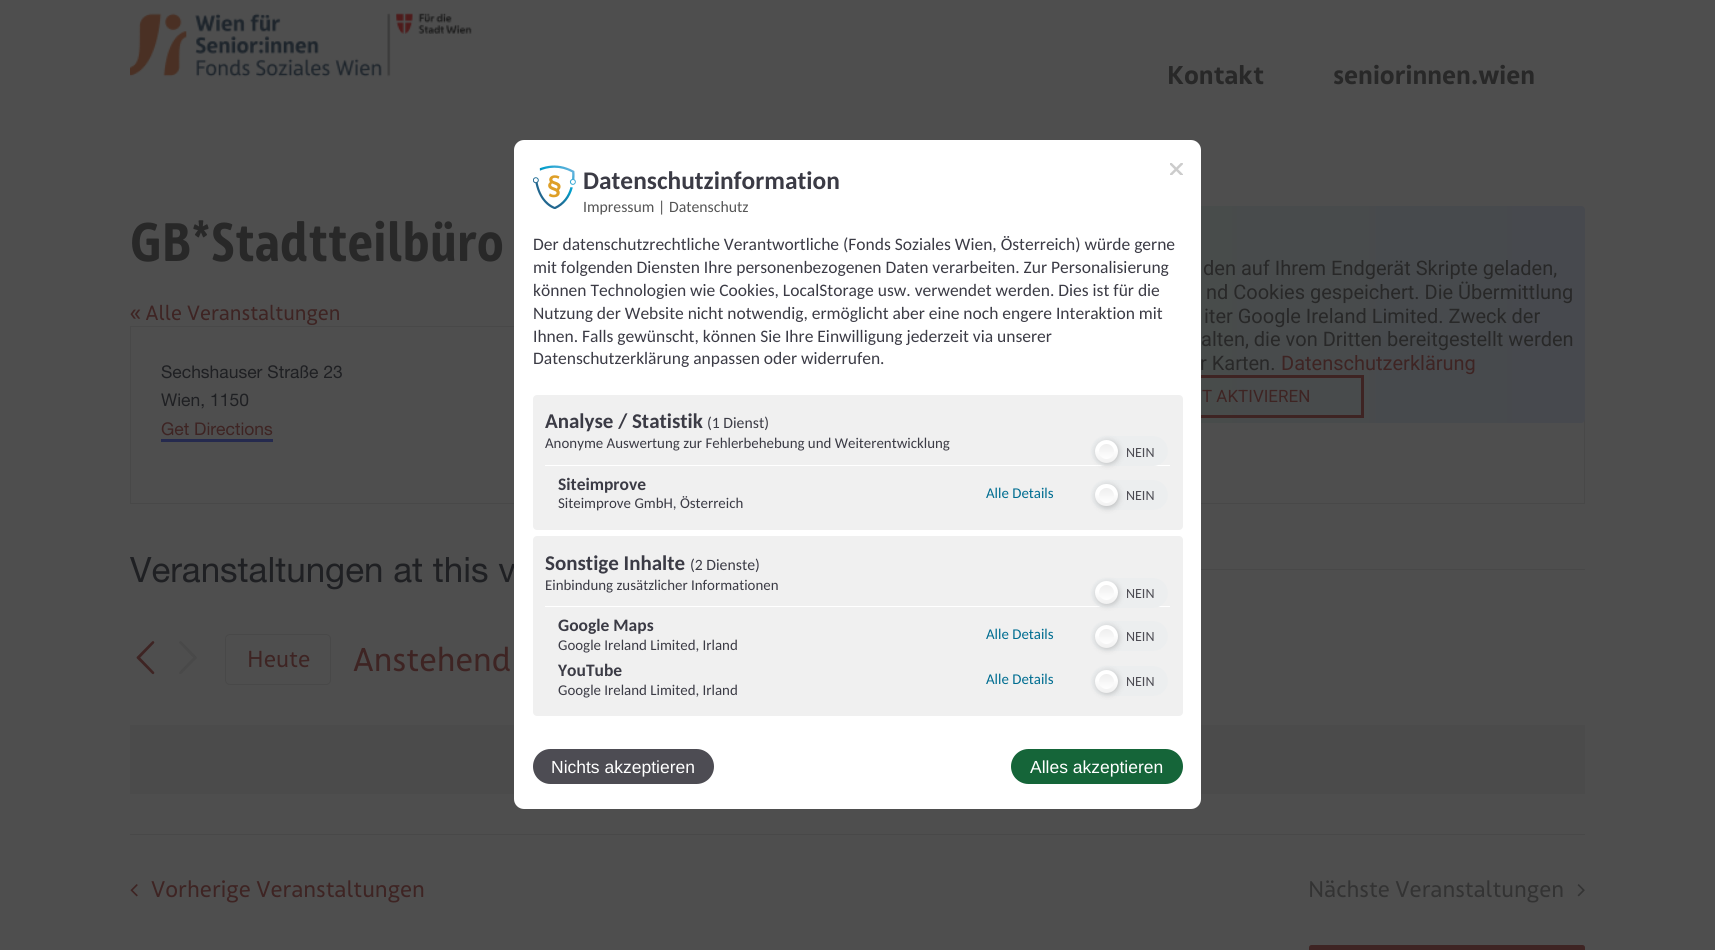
import math
import cairo

surface = cairo.ImageSurface(cairo.FORMAT_RGB24, 1715, 950)
c = cairo.Context(surface)
options = cairo.FontOptions()
options.set_hint_metrics(cairo.HINT_METRICS_OFF)
options.set_hint_style(cairo.HINT_STYLE_NONE)
c.set_font_options(options)
c.set_miter_limit(4)
def C(code):
 c.set_source_rgb(*(v / 255 for v in bytes.fromhex(code[-6:])))
def F(family, size, italic, bold):
 c.select_font_face(family, cairo.FONT_SLANT_ITALIC if italic else cairo.FONT_SLANT_NORMAL, cairo.FONT_WEIGHT_BOLD if bold else cairo.FONT_WEIGHT_NORMAL)
 c.set_font_size(size)
def T(x, y, s):
 c.move_to(x, y)
 c.show_text(s)
def R(x, y, w, h):
 c.rectangle(x, y, w, h)
 c.fill()
def Q(x, y, w, h, r):
 c.new_sub_path()
 for i, (u, v) in enumerate([(x + w - r, y + h - r), (x + r, y + h - r), (x + r, y + r), (x + w - r, y + r)]):
  c.arc(u, v, r, i * math.pi / 2, (i + 1) * math.pi / 2)
 c.close_path()
def S(x, y, w, h, r, blur, alpha):
 c.push_group_with_content(cairo.CONTENT_ALPHA)
 c.set_operator(cairo.OPERATOR_SOURCE)
 for i in range(15, -16, -2):
  e = blur * i / 6
  if min(w, h) + 2 * e > 0:
   c.set_source_rgba(0, 0, 0, alpha * math.erfc((i - 1) / 8.5) / 2)
   Q(x - e, y - e, w + 2 * e, h + 2 * e, max(0, min(r + e + blur * .6, min(w, h) / 2 + e)))
   c.fill()
 c.mask(c.pop_group())
def I(path, x, y, w, h):
 c.save()
 c.set_source_surface(cairo.ImageSurface.create_from_png(path), x, y)
 c.rectangle(x, y, w, h)
 c.fill()
 c.restore()
C('4e4e4e')
c.paint()
I('1.png',130,13,342,64)
F('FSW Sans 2',25,0,1)
C('282828')
T(1167,84,'Kontakt')
T(1333,84,'seniorinnen.wien')
F('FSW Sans',52.5,0,1)
T(130,261,'GB*Stadtteilbüro')
c.rectangle(130.5,326.5,1454,177)
C('484848')
c.set_line_width(1)
c.stroke()
F('Helvetica Neue',17.5,0,0)
C('1f2023')
T(161,378,'Sechshauser Straße 23')
T(161,406,'Wien, 1150')
C('3e2423')
T(161,435,'Get Directions')
C('252a4e')
R(161,439,112,3)
gradient = cairo.LinearGradient(884,314,1585,314)
gradient.add_color_stop_rgba(0,0.286,0.306,0.286,1)
gradient.add_color_stop_rgba(1,0.278,0.286,0.306,1)
c.set_source(gradient)
Q(884,206,701,217,4)
c.fill()
F('Roboto',20,0,0)
C('282828')
T(1203,275,'den auf Ihrem Endgerät Skripte geladen,')
T(1206,299,'nd Cookies gespeichert. Die Übermittlung')
T(1204,323,'iter Google Ireland Limited. Zweck der')
T(1201,346,'alten, die von Dritten bereitgestellt werden')
T(1200,370,'r Karten.')
C('3e2423')
T(1281,370,'Datenschutzerklärung')
c.rectangle(1101.5,376.5,261,40)
c.set_line_width(3)
c.stroke()
F('Roboto',17,0,0)
T(1202,402,'T AKTIVIEREN')
F('FSW Sans',20,0,0)
T(130,320,'« Alle Veranstaltungen')
F('Helvetica Neue',35,0,0)
C('1f2023')
T(130,582,'Veranstaltungen at this v')
C('484848')
R(1201,569,384,1)
I('2.png',136,641,19,34)
I('3.png',179,641,18,33)
Q(225.5,634.5,105,50,4.5)
c.set_line_width(1)
c.stroke()
F('FSW Sans',22.5,0,0)
C('3e2423')
T(247,667,'Heute')
F('FSW Sans',32,0,0)
T(353,671,'Anstehend')
C('4b4b4b')
R(130,725,1455,69)
C('484848')
R(130,834,1455,1)
I('4.png',130,884,8,13)
F('FSW Sans',22,0,0)
C('3e2423')
T(151,897,'Vorherige Veranstaltungen')
C('333333')
T(1308,897,'Nächste Veranstaltungen')
I('5.png',1577,884,8,13)
C('3e2423')
Q(1309,945,276,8,2.5)
c.fill()
C('ffffff')
Q(514,140,687,669,10)
c.fill()
I('6.png',533,165,43,44)
c.save()
c.rectangle(1170,163,13,12)
c.clip()
c.new_path()
c.move_to(1170,163)
c.line_to(1182.5,175.5)
c.move_to(1170,175.5)
c.line_to(1182.5,163)
C('cccccc')
c.set_line_width(2.5)
c.stroke()
c.restore()
F('Carlito',25.4,0,1)
C('3b3b45')
T(583,189,'Datenschutzinformation')
F('Carlito',15.75,0,0)
C('555555')
T(583,212,'Impressum')
T(658,212,'|')
T(669,212,'Datenschutz')
F('Carlito',17.5,0,0)
C('3b3b45')
T(533,250,'Der datenschutzrechtliche Verantwortliche (Fonds Soziales Wien, Österreich) würde gerne')
T(533,273,'mit folgenden Diensten Ihre personenbezogenen Daten verarbeiten. Zur Personalisierung')
T(533,296,'können Technologien wie Cookies, LocalStorage usw. verwendet werden. Dies ist für die')
T(533,319,'Nutzung der Website nicht notwendig, ermöglicht aber eine noch engere Interaktion mit')
T(533,342,'Ihnen. Falls gewünscht, können Sie Ihre Einwilligung jederzeit via unserer')
T(533,364,'Datenschutzerklärung anpassen oder widerrufen.')
C('f0f0f0')
Q(533,395,650,135,4)
c.fill()
F('Carlito',21,0,1)
C('3b3b45')
T(545,428,'Analyse / Statistik')
F('Carlito',15.75,0,0)
T(707,428,'(1 Dienst)')
F('Carlito',14.9,0,0)
T(545,448,'Anonyme Auswertung zur Fehlerbehebung und Weiterentwicklung')
C('ffffff')
R(545,465,625,1)
C('eceeef')
Q(1091,436,77,30,15)
c.fill()
C('000000')
S(1096,441,23,23,11.5,3,.2)
gradient = cairo.LinearGradient(1106,440,1106,463)
gradient.add_color_stop_rgba(.4,1,1,1,1)
gradient.add_color_stop_rgba(1,0.941,0.941,0.941,1)
c.set_source(gradient)
c.arc(1106.5,451.5,11.5,0,2 * math.pi)
c.fill()
gradient = cairo.LinearGradient(1106,444,1106,459)
gradient.add_color_stop_rgba(0,0.933,0.933,0.933,1)
gradient.add_color_stop_rgba(1,1,1,1,1)
c.set_source(gradient)
c.arc(1106.5,451.5,7.5,0,2 * math.pi)
c.fill()
F('Carlito',14,0,0)
C('4d4c53')
T(1126,457,'NEIN')
F('Carlito',17.5,0,1)
C('3b3b45')
T(558,490,'Siteimprove')
F('Carlito',14.9,0,0)
T(558,508,'Siteimprove GmbH, Österreich')
C('006d91')
T(986,498,'Alle Details')
C('eceeef')
Q(1091,480,77,30,15)
c.fill()
C('000000')
S(1096,485,23,23,11.5,3,.2)
gradient = cairo.LinearGradient(1106,484,1106,507)
gradient.add_color_stop_rgba(.4,1,1,1,1)
gradient.add_color_stop_rgba(1,0.941,0.941,0.941,1)
c.set_source(gradient)
Q(1095,484,23,22,11)
c.fill()
gradient = cairo.LinearGradient(1106,488,1106,503)
gradient.add_color_stop_rgba(0,0.933,0.933,0.933,1)
gradient.add_color_stop_rgba(1,1,1,1,1)
c.set_source(gradient)
c.arc(1106.5,495.5,7.5,0,2 * math.pi)
c.fill()
F('Carlito',14,0,0)
C('4d4c53')
T(1126,500,'NEIN')
C('f0f0f0')
Q(533,536,650,180,4)
c.fill()
F('Carlito',21,0,1)
C('3b3b45')
T(545,570,'Sonstige Inhalte')
F('Carlito',15.75,0,0)
T(690,570,'(2 Dienste)')
F('Carlito',14.9,0,0)
T(545,590,'Einbindung zusätzlicher Informationen')
C('ffffff')
R(545,606,625,1)
C('eceeef')
Q(1091,578,77,30,15)
c.fill()
C('000000')
S(1096,583,23,22,11,3,.2)
gradient = cairo.LinearGradient(1106,582,1106,604)
gradient.add_color_stop_rgba(.4,1,1,1,1)
gradient.add_color_stop_rgba(1,0.941,0.941,0.941,1)
c.set_source(gradient)
c.arc(1106.5,592.5,11.5,0,2 * math.pi)
c.fill()
gradient = cairo.LinearGradient(1106,585,1106,600)
gradient.add_color_stop_rgba(0,0.933,0.933,0.933,1)
gradient.add_color_stop_rgba(1,1,1,1,1)
c.set_source(gradient)
c.arc(1106.5,592.5,7.5,0,2 * math.pi)
c.fill()
F('Carlito',14,0,0)
C('4d4c53')
T(1126,598,'NEIN')
F('Carlito',17.5,0,1)
C('3b3b45')
T(558,631,'Google Maps')
F('Carlito',14.9,0,0)
T(558,650,'Google Ireland Limited, Irland')
C('006d91')
T(986,639,'Alle Details')
C('eceeef')
Q(1091,621,77,30,15)
c.fill()
C('000000')
S(1096,626,23,23,11.5,3,.2)
gradient = cairo.LinearGradient(1106,625,1106,648)
gradient.add_color_stop_rgba(.4,1,1,1,1)
gradient.add_color_stop_rgba(1,0.941,0.941,0.941,1)
c.set_source(gradient)
c.arc(1106.5,636.5,11.5,0,2 * math.pi)
c.fill()
gradient = cairo.LinearGradient(1106,629,1106,644)
gradient.add_color_stop_rgba(0,0.933,0.933,0.933,1)
gradient.add_color_stop_rgba(1,1,1,1,1)
c.set_source(gradient)
c.arc(1106.5,636.5,7.5,0,2 * math.pi)
c.fill()
F('Carlito',14,0,0)
C('4d4c53')
T(1126,641,'NEIN')
F('Carlito',17.5,0,1)
C('3b3b45')
T(558,676,'YouTube')
F('Carlito',14.9,0,0)
T(558,695,'Google Ireland Limited, Irland')
C('006d91')
T(986,684,'Alle Details')
C('eceeef')
Q(1091,666,77,30,15)
c.fill()
C('000000')
S(1096,671,23,23,11.5,3,.2)
gradient = cairo.LinearGradient(1106,670,1106,693)
gradient.add_color_stop_rgba(.4,1,1,1,1)
gradient.add_color_stop_rgba(1,0.941,0.941,0.941,1)
c.set_source(gradient)
c.arc(1106.5,681.5,11.5,0,2 * math.pi)
c.fill()
gradient = cairo.LinearGradient(1106,674,1106,689)
gradient.add_color_stop_rgba(0,0.933,0.933,0.933,1)
gradient.add_color_stop_rgba(1,1,1,1,1)
c.set_source(gradient)
c.arc(1106.5,681.5,7.5,0,2 * math.pi)
c.fill()
F('Carlito',14,0,0)
C('4d4c53')
T(1126,686,'NEIN')
Q(533,749,181,35,17.5)
c.fill()
F('Liberation Sans',17.5,0,0)
C('ffffff')
T(551,773,'Nichts akzeptieren')
C('156539')
Q(1011,749,172,35,17.5)
c.fill()
C('ffffff')
T(1030,773,'Alles akzeptieren')
surface.write_to_png('o.png')
